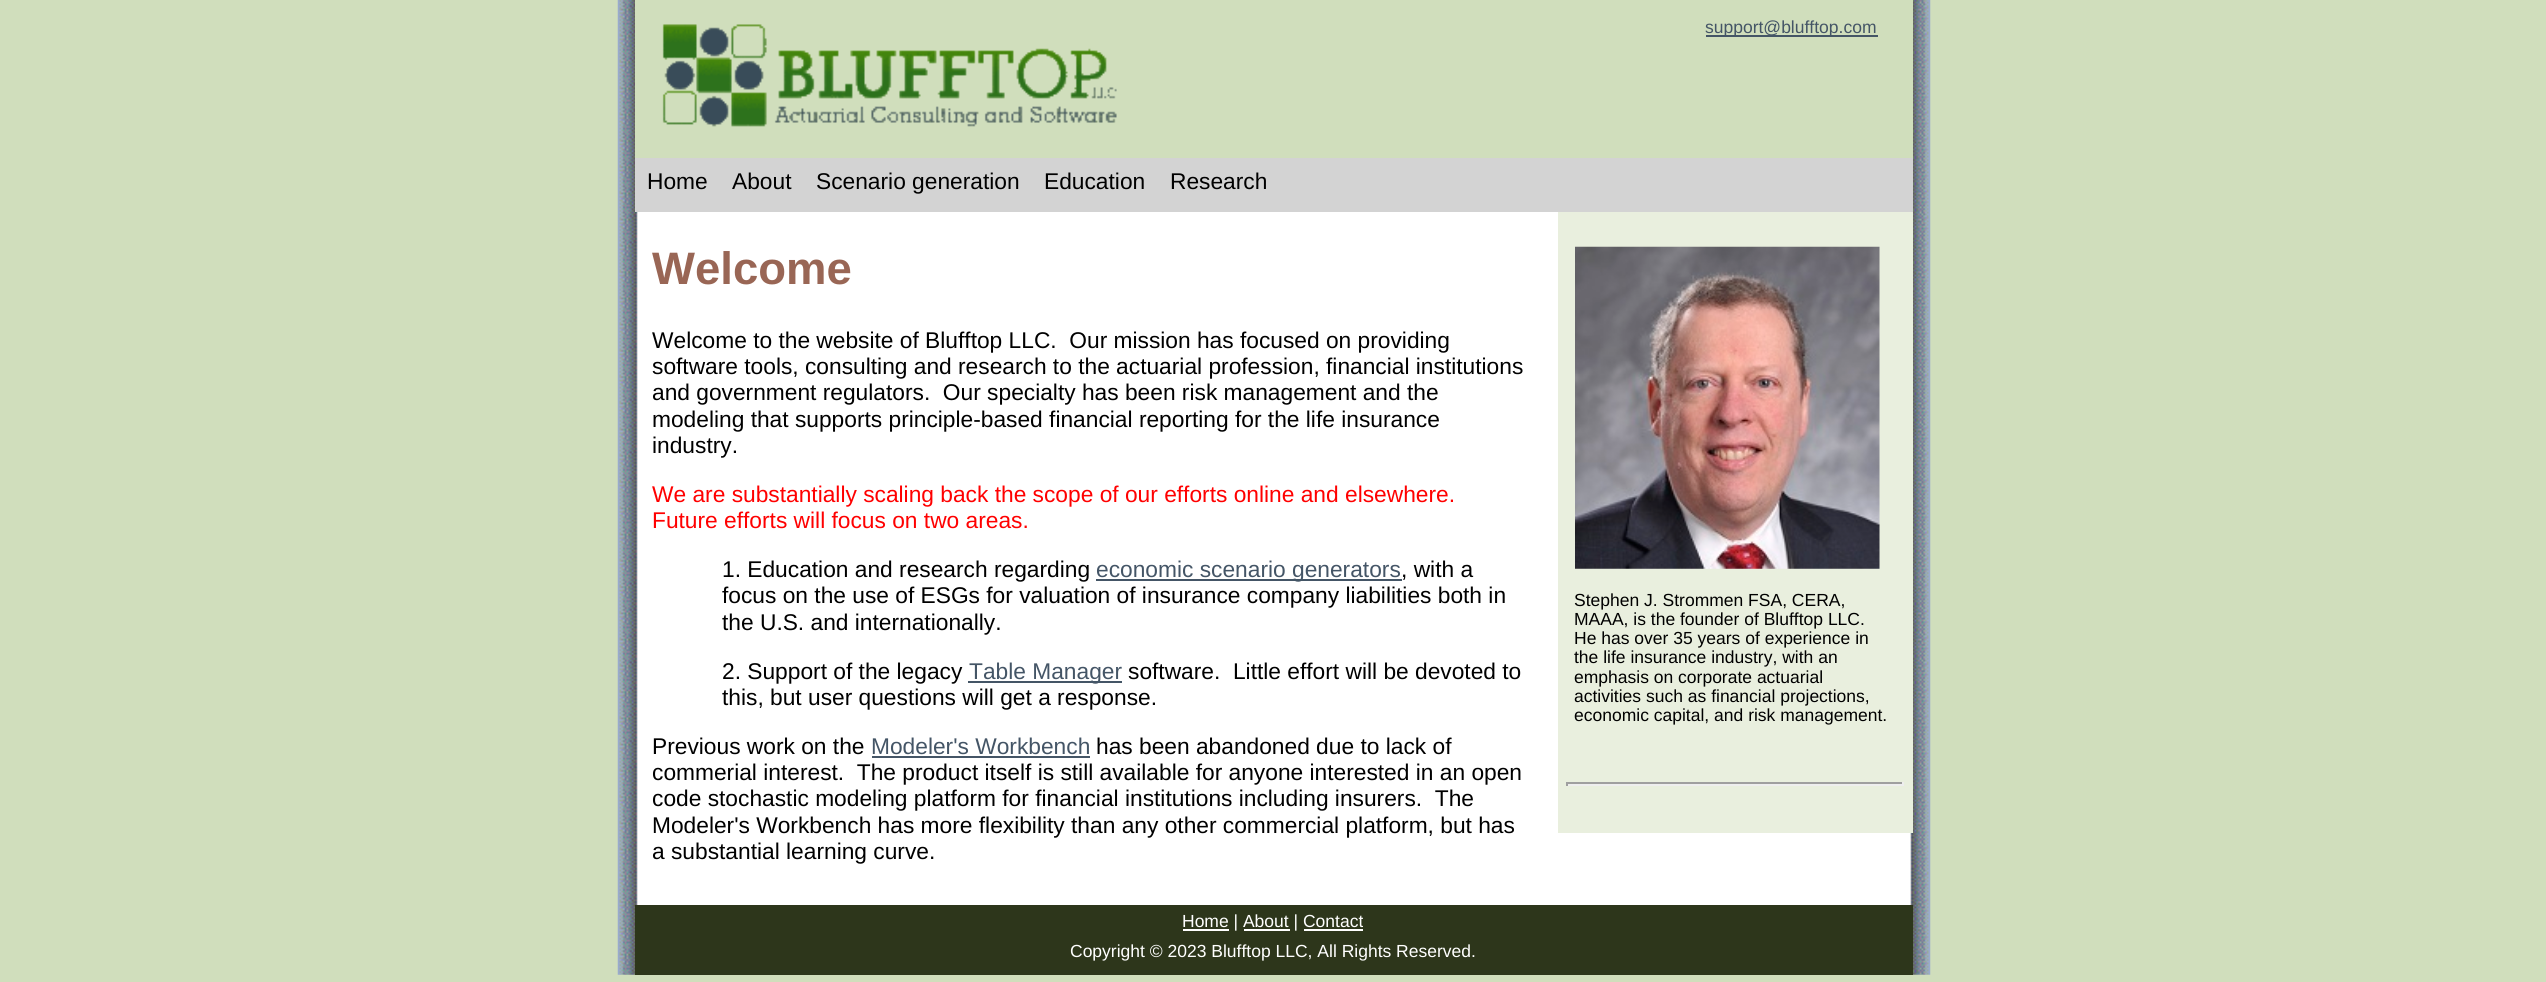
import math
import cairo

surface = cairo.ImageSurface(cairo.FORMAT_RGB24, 2546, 982)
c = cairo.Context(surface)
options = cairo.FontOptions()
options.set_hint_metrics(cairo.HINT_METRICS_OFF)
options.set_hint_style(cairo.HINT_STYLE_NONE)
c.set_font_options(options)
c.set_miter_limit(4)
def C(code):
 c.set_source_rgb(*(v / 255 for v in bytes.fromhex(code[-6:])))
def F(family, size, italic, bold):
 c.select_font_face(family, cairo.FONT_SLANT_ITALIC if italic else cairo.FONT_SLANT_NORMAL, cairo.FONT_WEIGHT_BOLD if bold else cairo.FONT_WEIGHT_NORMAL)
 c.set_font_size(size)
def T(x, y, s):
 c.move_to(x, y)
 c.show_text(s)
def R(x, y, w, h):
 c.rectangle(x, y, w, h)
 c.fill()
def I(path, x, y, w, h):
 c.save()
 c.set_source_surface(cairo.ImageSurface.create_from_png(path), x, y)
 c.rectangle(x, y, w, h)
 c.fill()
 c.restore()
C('d0debc')
c.paint()
I('1.png',617,0,1314,975)
C('d0debc')
R(635,0,1278,158)
I('2.png',662,24,455,103)
C('445566')
R(1706,35,172,2)
F('Liberation Sans',17.5,0,0)
T(1705,33,'support@blufftop.com')
C('d3d3d3')
R(635,158,1278,54)
F('Liberation Sans',22.75,0,0)
C('000000')
T(647,189,'Home')
T(732,189,'About')
T(816,189,'Scenario generation')
T(1044,189,'Education')
T(1170,189,'Research')
F('Liberation Sans',45.5,0,1)
C('996655')
T(652,284,'Welcome')
F('Liberation Sans',22.75,0,0)
C('000000')
T(652,348,'Welcome to the website of Blufftop LLC.  Our mission has focused on providing')
T(652,374,'software tools, consulting and research to the actuarial profession, financial institutions')
T(652,400,'and government regulators.  Our specialty has been risk management and the')
T(652,427,'modeling that supports principle-based financial reporting for the life insurance')
T(652,453,'industry.')
C('ff0000')
T(652,502,'We are substantially scaling back the scope of our efforts online and elsewhere.')
T(652,528,'Future efforts will focus on two areas.')
C('000000')
T(722,577,'1. Education and research regarding')
C('445566')
R(1096,579,306,2)
T(1096,577,'economic scenario generators')
C('000000')
T(1401,577,', with a')
T(722,603,'focus on the use of ESGs for valuation of insurance company liabilities both in')
T(722,630,'the U.S. and internationally.')
T(722,679,'2. Support of the legacy')
C('445566')
R(968,681,154,2)
T(969,679,'Table Manager')
C('000000')
T(1128,679,'software.  Little effort will be devoted to')
T(722,705,'this, but user questions will get a response.')
T(652,754,'Previous work on the')
C('445566')
T(871,754,'Modeler\'s Workbench')
R(872,756,218,2)
C('000000')
T(1096,754,'has been abandoned due to lack of')
T(652,780,'commerial interest.  The product itself is still available for anyone interested in an open')
T(652,806,'code stochastic modeling platform for financial institutions including insurers.  The')
T(652,833,'Modeler\'s Workbench has more flexibility than any other commercial platform, but has')
T(652,859,'a substantial learning curve.')
C('e9efde')
R(1558,212,355,621)
I('3.png',1575,246,305,323)
F('Liberation Sans',17.5,0,0)
C('000000')
T(1574,606,'Stephen J. Strommen FSA, CERA,')
T(1574,625,'MAAA, is the founder of Blufftop LLC.')
T(1574,644,'He has over 35 years of experience in')
T(1574,663,'the life insurance industry, with an')
T(1574,683,'emphasis on corporate actuarial')
T(1574,702,'activities such as financial projections,')
T(1574,721,'economic capital, and risk management.')
C('9f9f9f')
R(1566,782,338,2)
C('eeeeee')
R(1902,782,2,4)
R(1566,784,338,2)
C('9f9f9f')
R(1566,782,2,4)
C('2d361b')
R(635,905,1278,70)
C('ffffff')
R(1183,929,46,2)
T(1182,927,'Home | About | Contact')
R(1244,929,46,2)
R(1304,929,59,2)
T(1070,957,'Copyright © 2023 Blufftop LLC, All Rights Reserved.')
surface.write_to_png('o.png')
